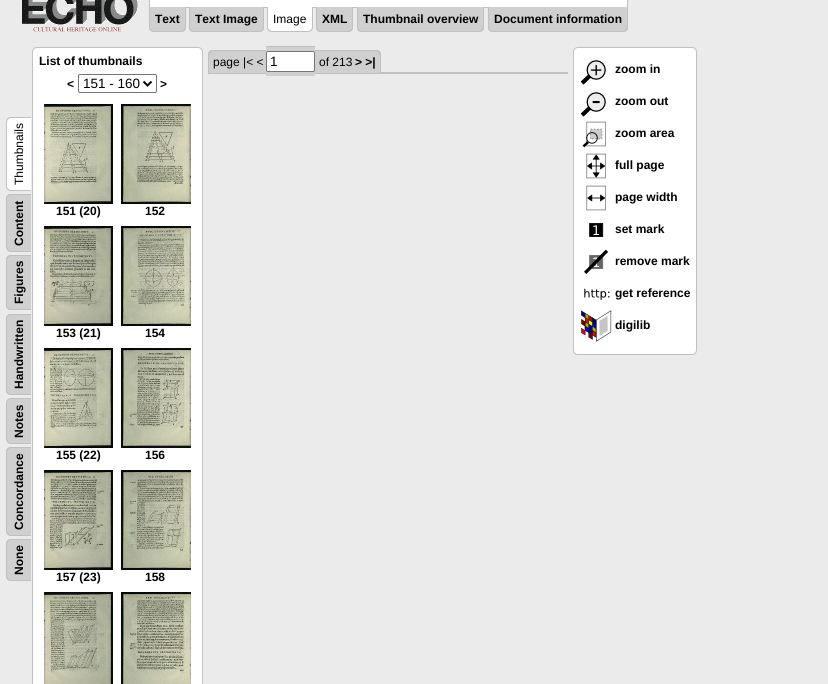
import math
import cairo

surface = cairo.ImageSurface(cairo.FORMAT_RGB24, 828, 684)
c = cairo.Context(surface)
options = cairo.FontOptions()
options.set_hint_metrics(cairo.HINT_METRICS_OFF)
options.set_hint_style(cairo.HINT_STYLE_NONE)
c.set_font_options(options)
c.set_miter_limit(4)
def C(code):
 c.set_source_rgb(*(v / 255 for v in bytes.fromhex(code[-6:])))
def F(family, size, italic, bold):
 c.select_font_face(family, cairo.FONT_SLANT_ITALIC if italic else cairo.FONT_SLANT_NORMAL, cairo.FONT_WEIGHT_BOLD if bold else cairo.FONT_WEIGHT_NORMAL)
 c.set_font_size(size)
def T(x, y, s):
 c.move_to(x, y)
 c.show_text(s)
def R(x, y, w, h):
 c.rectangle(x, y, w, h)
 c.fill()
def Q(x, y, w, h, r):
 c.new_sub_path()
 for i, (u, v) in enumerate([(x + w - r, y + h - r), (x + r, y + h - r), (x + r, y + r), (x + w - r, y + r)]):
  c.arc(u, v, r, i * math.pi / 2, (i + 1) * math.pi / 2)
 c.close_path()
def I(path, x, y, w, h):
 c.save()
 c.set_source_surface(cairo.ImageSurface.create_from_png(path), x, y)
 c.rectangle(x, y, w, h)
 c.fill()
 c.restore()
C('ebebeb')
c.paint()
I('1.png',22,0,116,32)
C('ffffff')
c.rectangle(149.5,-.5,478,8)
c.fill_preserve()
C('c0c0c0')
c.set_line_width(1)
c.stroke()
C('d0d0d0')
c.new_path()
c.move_to(149,7)
c.line_to(186,7)
c.line_to(186,27)
c.curve_to(186,30,184,32,181,32)
c.line_to(154,32)
c.curve_to(151,32,149,30,149,27)
c.close_path()
c.fill()
C('c0c0c0')
c.set_fill_rule(cairo.FILL_RULE_EVEN_ODD)
c.new_path()
c.move_to(149,7)
c.line_to(186,7)
c.line_to(186,27)
c.curve_to(186,30,184,32,181,32)
c.line_to(154,32)
c.curve_to(151,32,149,30,149,27)
c.close_path()
c.move_to(150,7)
c.line_to(185,7)
c.line_to(185,27)
c.curve_to(185,29,183,31,181,31)
c.line_to(154,31)
c.curve_to(152,31,150,29,150,27)
c.close_path()
c.fill()
F('Liberation Sans',12,0,1)
C('000000')
T(155,23,'Text')
C('d0d0d0')
c.new_path()
c.move_to(189,7)
c.line_to(264,7)
c.line_to(264,27)
c.curve_to(264,30,262,32,259,32)
c.line_to(194,32)
c.curve_to(191,32,189,30,189,27)
c.close_path()
c.fill()
C('c0c0c0')
c.new_path()
c.move_to(189,7)
c.line_to(264,7)
c.line_to(264,27)
c.curve_to(264,30,262,32,259,32)
c.line_to(194,32)
c.curve_to(191,32,189,30,189,27)
c.close_path()
c.move_to(190,7)
c.line_to(263,7)
c.line_to(263,27)
c.curve_to(263,29,261,31,259,31)
c.line_to(194,31)
c.curve_to(192,31,190,29,190,27)
c.close_path()
c.fill()
C('000000')
T(195,23,'Text Image')
C('ffffff')
c.new_path()
c.move_to(267,7)
c.line_to(313,7)
c.line_to(313,27)
c.curve_to(313,30,311,32,308,32)
c.line_to(272,32)
c.curve_to(269,32,267,30,267,27)
c.close_path()
c.fill()
C('c0c0c0')
c.new_path()
c.move_to(267,7)
c.line_to(313,7)
c.line_to(313,27)
c.curve_to(313,30,311,32,308,32)
c.line_to(272,32)
c.curve_to(269,32,267,30,267,27)
c.close_path()
c.move_to(268,7)
c.line_to(312,7)
c.line_to(312,27)
c.curve_to(312,29,310,31,308,31)
c.line_to(272,31)
c.curve_to(270,31,268,29,268,27)
c.close_path()
c.fill()
F('Liberation Sans',12,0,0)
C('000000')
T(273,23,'Image')
C('d0d0d0')
c.new_path()
c.move_to(316,7)
c.line_to(353,7)
c.line_to(353,27)
c.curve_to(353,30,351,32,348,32)
c.line_to(321,32)
c.curve_to(318,32,316,30,316,27)
c.close_path()
c.fill()
C('c0c0c0')
c.new_path()
c.move_to(316,7)
c.line_to(353,7)
c.line_to(353,27)
c.curve_to(353,30,351,32,348,32)
c.line_to(321,32)
c.curve_to(318,32,316,30,316,27)
c.close_path()
c.move_to(317,7)
c.line_to(352,7)
c.line_to(352,27)
c.curve_to(352,29,350,31,348,31)
c.line_to(321,31)
c.curve_to(319,31,317,29,317,27)
c.close_path()
c.fill()
F('Liberation Sans',12,0,1)
C('000000')
T(322,23,'XML')
C('d0d0d0')
c.new_path()
c.move_to(357,7)
c.line_to(484,7)
c.line_to(484,27)
c.curve_to(484,30,482,32,479,32)
c.line_to(362,32)
c.curve_to(359,32,357,30,357,27)
c.close_path()
c.fill()
C('c0c0c0')
c.new_path()
c.move_to(357,7)
c.line_to(484,7)
c.line_to(484,27)
c.curve_to(484,30,482,32,479,32)
c.line_to(362,32)
c.curve_to(359,32,357,30,357,27)
c.close_path()
c.move_to(358,7)
c.line_to(483,7)
c.line_to(483,27)
c.curve_to(483,29,481,31,479,31)
c.line_to(362,31)
c.curve_to(360,31,358,29,358,27)
c.close_path()
c.fill()
C('000000')
T(363,23,'Thumbnail overview')
C('d0d0d0')
c.new_path()
c.move_to(488,7)
c.line_to(628,7)
c.line_to(628,27)
c.curve_to(628,30,626,32,623,32)
c.line_to(493,32)
c.curve_to(490,32,488,30,488,27)
c.close_path()
c.fill()
C('c0c0c0')
c.new_path()
c.move_to(488,7)
c.line_to(628,7)
c.line_to(628,27)
c.curve_to(628,30,626,32,623,32)
c.line_to(493,32)
c.curve_to(490,32,488,30,488,27)
c.close_path()
c.move_to(489,7)
c.line_to(627,7)
c.line_to(627,27)
c.curve_to(627,29,625,31,623,31)
c.line_to(493,31)
c.curve_to(491,31,489,29,489,27)
c.close_path()
c.fill()
C('000000')
T(494,23,'Document information')
C('ffffff')
c.set_fill_rule(cairo.FILL_RULE_WINDING)
c.new_path()
c.move_to(6,186)
c.line_to(6,122)
c.curve_to(6,119,8,117,11,117)
c.line_to(31,117)
c.line_to(31,191)
c.line_to(11,191)
c.curve_to(8,191,6,189,6,186)
c.close_path()
c.fill()
C('c0c0c0')
c.set_fill_rule(cairo.FILL_RULE_EVEN_ODD)
c.new_path()
c.move_to(6,186)
c.line_to(6,122)
c.curve_to(6,119,8,117,11,117)
c.line_to(31,117)
c.line_to(31,191)
c.line_to(11,191)
c.curve_to(8,191,6,189,6,186)
c.close_path()
c.move_to(7,186)
c.line_to(7,122)
c.curve_to(7,120,9,118,11,118)
c.line_to(31,118)
c.line_to(31,190)
c.line_to(11,190)
c.curve_to(9,190,7,188,7,186)
c.close_path()
c.fill()
F('Liberation Sans',12,0,0)
C('000000')
c.save()
c.translate(23,185)
c.rotate(-90 * math.pi / 180)
T(0,0,'Thumbnails')
c.restore()
C('d0d0d0')
c.set_fill_rule(cairo.FILL_RULE_WINDING)
c.new_path()
c.move_to(6,247)
c.line_to(6,199)
c.curve_to(6,196,8,194,11,194)
c.line_to(31,194)
c.line_to(31,252)
c.line_to(11,252)
c.curve_to(8,252,6,249,6,247)
c.close_path()
c.fill()
C('c0c0c0')
c.set_fill_rule(cairo.FILL_RULE_EVEN_ODD)
c.new_path()
c.move_to(6,247)
c.line_to(6,199)
c.curve_to(6,196,8,194,11,194)
c.line_to(31,194)
c.line_to(31,252)
c.line_to(11,252)
c.curve_to(8,252,6,249,6,247)
c.close_path()
c.move_to(7,247)
c.line_to(7,199)
c.curve_to(7,197,9,195,11,195)
c.line_to(31,195)
c.line_to(31,251)
c.line_to(11,251)
c.curve_to(9,251,7,249,7,247)
c.close_path()
c.fill()
F('Liberation Sans',12,0,1)
C('000000')
c.save()
c.translate(23,246)
c.rotate(-90 * math.pi / 180)
T(0,0,'Content')
c.restore()
C('d0d0d0')
c.set_fill_rule(cairo.FILL_RULE_WINDING)
c.new_path()
c.move_to(6,305)
c.line_to(6,260)
c.curve_to(6,257,8,255,11,255)
c.line_to(31,255)
c.line_to(31,310)
c.line_to(11,310)
c.curve_to(8,310,6,308,6,305)
c.close_path()
c.fill()
C('c0c0c0')
c.set_fill_rule(cairo.FILL_RULE_EVEN_ODD)
c.new_path()
c.move_to(6,305)
c.line_to(6,260)
c.curve_to(6,257,8,255,11,255)
c.line_to(31,255)
c.line_to(31,310)
c.line_to(11,310)
c.curve_to(8,310,6,308,6,305)
c.close_path()
c.move_to(7,305)
c.line_to(7,260)
c.curve_to(7,258,9,256,11,256)
c.line_to(31,256)
c.line_to(31,309)
c.line_to(11,309)
c.curve_to(9,309,7,307,7,305)
c.close_path()
c.fill()
C('000000')
c.save()
c.translate(23,304)
c.rotate(-90 * math.pi / 180)
T(0,0,'Figures')
c.restore()
C('d0d0d0')
c.set_fill_rule(cairo.FILL_RULE_WINDING)
c.new_path()
c.move_to(6,390)
c.line_to(6,319)
c.curve_to(6,316,8,314,11,314)
c.line_to(31,314)
c.line_to(31,395)
c.line_to(11,395)
c.curve_to(8,395,6,393,6,390)
c.close_path()
c.fill()
C('c0c0c0')
c.set_fill_rule(cairo.FILL_RULE_EVEN_ODD)
c.new_path()
c.move_to(6,390)
c.line_to(6,319)
c.curve_to(6,316,8,314,11,314)
c.line_to(31,314)
c.line_to(31,395)
c.line_to(11,395)
c.curve_to(8,395,6,393,6,390)
c.close_path()
c.move_to(7,390)
c.line_to(7,319)
c.curve_to(7,316,9,315,11,315)
c.line_to(31,315)
c.line_to(31,394)
c.line_to(11,394)
c.curve_to(9,394,7,392,7,390)
c.close_path()
c.fill()
C('000000')
c.save()
c.translate(23,389)
c.rotate(-90 * math.pi / 180)
T(0,0,'Handwritten')
c.restore()
C('d0d0d0')
c.set_fill_rule(cairo.FILL_RULE_WINDING)
c.new_path()
c.move_to(6,439)
c.line_to(6,403)
c.curve_to(6,401,8,398,11,398)
c.line_to(31,398)
c.line_to(31,444)
c.line_to(11,444)
c.curve_to(8,444,6,441,6,439)
c.close_path()
c.fill()
C('c0c0c0')
c.set_fill_rule(cairo.FILL_RULE_EVEN_ODD)
c.new_path()
c.move_to(6,439)
c.line_to(6,403)
c.curve_to(6,401,8,398,11,398)
c.line_to(31,398)
c.line_to(31,444)
c.line_to(11,444)
c.curve_to(8,444,6,441,6,439)
c.close_path()
c.move_to(7,439)
c.line_to(7,403)
c.curve_to(7,401,9,399,11,399)
c.line_to(31,399)
c.line_to(31,443)
c.line_to(11,443)
c.curve_to(9,443,7,441,7,439)
c.close_path()
c.fill()
C('000000')
c.save()
c.translate(23,438)
c.rotate(-90 * math.pi / 180)
T(0,0,'Notes')
c.restore()
C('d0d0d0')
c.set_fill_rule(cairo.FILL_RULE_WINDING)
c.new_path()
c.move_to(6,531)
c.line_to(6,452)
c.curve_to(6,449,8,447,11,447)
c.line_to(31,447)
c.line_to(31,536)
c.line_to(11,536)
c.curve_to(8,536,6,533,6,531)
c.close_path()
c.fill()
C('c0c0c0')
c.set_fill_rule(cairo.FILL_RULE_EVEN_ODD)
c.new_path()
c.move_to(6,531)
c.line_to(6,452)
c.curve_to(6,449,8,447,11,447)
c.line_to(31,447)
c.line_to(31,536)
c.line_to(11,536)
c.curve_to(8,536,6,533,6,531)
c.close_path()
c.move_to(7,531)
c.line_to(7,452)
c.curve_to(7,450,9,448,11,448)
c.line_to(31,448)
c.line_to(31,535)
c.line_to(11,535)
c.curve_to(9,535,7,533,7,531)
c.close_path()
c.fill()
C('000000')
c.save()
c.translate(23,530)
c.rotate(-90 * math.pi / 180)
T(0,0,'Concordance')
c.restore()
C('d0d0d0')
c.set_fill_rule(cairo.FILL_RULE_WINDING)
c.new_path()
c.move_to(6,576)
c.line_to(6,544)
c.curve_to(6,541,8,539,11,539)
c.line_to(31,539)
c.line_to(31,581)
c.line_to(11,581)
c.curve_to(8,581,6,579,6,576)
c.close_path()
c.fill()
C('c0c0c0')
c.set_fill_rule(cairo.FILL_RULE_EVEN_ODD)
c.new_path()
c.move_to(6,576)
c.line_to(6,544)
c.curve_to(6,541,8,539,11,539)
c.line_to(31,539)
c.line_to(31,581)
c.line_to(11,581)
c.curve_to(8,581,6,579,6,576)
c.close_path()
c.move_to(7,576)
c.line_to(7,544)
c.curve_to(7,542,9,540,11,540)
c.line_to(31,540)
c.line_to(31,580)
c.line_to(11,580)
c.curve_to(9,580,7,578,7,576)
c.close_path()
c.fill()
C('000000')
c.save()
c.translate(23,575)
c.rotate(-90 * math.pi / 180)
T(0,0,'None')
c.restore()
C('ffffff')
Q(32.5,47.5,170,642,4.5)
c.fill_preserve()
C('c0c0c0')
c.stroke()
C('000000')
T(39,65,'List of thumbnails')
T(67,88,'<')
Q(78.5,74.5,78,18,1.5)
C('767676')
c.stroke()
c.new_path()
c.move_to(143.5,81.5)
c.line_to(147.5,85.5)
c.line_to(151.5,81.5)
C('000000')
c.set_line_width(2)
c.stroke()
F('Liberation Sans',13.5,0,0)
T(83,88,'151 - 160')
F('Liberation Sans',12,0,1)
T(160,88,'>')
I('2.png',44,104,69,100)
T(56,215,'151 (20)')
I('3.png',121,104,70,100)
T(145,215,'152')
I('4.png',44,226,69,100)
T(56,337,'153 (21)')
I('5.png',121,226,70,100)
T(145,337,'154')
I('6.png',44,348,69,100)
T(56,459,'155 (22)')
I('7.png',121,348,70,100)
T(145,459,'156')
I('8.png',44,470,69,100)
T(56,581,'157 (23)')
I('9.png',121,470,70,100)
T(145,581,'158')
I('10.png',44,592,69,92)
I('11.png',121,592,70,92)
C('c0c0c0')
R(208,72,360,2)
C('d0d0d0')
c.new_path()
c.move_to(213,50)
c.line_to(243,50)
c.line_to(243,73)
c.line_to(208,73)
c.line_to(208,55)
c.curve_to(208,52,210,50,213,50)
c.close_path()
c.fill()
C('c0c0c0')
c.new_path()
c.move_to(213,50)
c.line_to(243,50)
c.line_to(243,73)
c.line_to(208,73)
c.line_to(208,55)
c.curve_to(208,52,210,50,213,50)
c.close_path()
c.move_to(213,51)
c.line_to(243,51)
c.line_to(243,73)
c.line_to(209,73)
c.line_to(209,55)
c.curve_to(209,53,211,51,213,51)
c.close_path()
c.fill()
C('d0d0d0')
R(243,51,10,22)
C('c0c0c0')
R(243,50,10,1)
C('d0d0d0')
R(253,50,13,23)
C('c0c0c0')
R(253,50,13,1)
C('d0d0d0')
R(266,47,49,29)
C('c0c0c0')
R(266,46,49,1)
C('d0d0d0')
R(315,50,4,23)
C('c0c0c0')
R(315,50,40,1)
C('d0d0d0')
R(319,51,36,22)
R(355,50,11,23)
C('c0c0c0')
R(355,50,11,1)
C('d0d0d0')
c.new_path()
c.move_to(366,50)
c.line_to(376,50)
c.curve_to(379,50,381,52,381,55)
c.line_to(381,73)
c.line_to(366,73)
c.close_path()
c.fill()
C('c0c0c0')
c.new_path()
c.move_to(366,50)
c.line_to(376,50)
c.curve_to(379,50,381,52,381,55)
c.line_to(381,73)
c.line_to(366,73)
c.close_path()
c.move_to(366,51)
c.line_to(376,51)
c.curve_to(378,51,380,53,380,55)
c.line_to(380,73)
c.line_to(366,73)
c.close_path()
c.fill()
F('Liberation Sans',12,0,0)
C('000000')
T(213,66,'page |< <')
C('ffffff')
Q(266.5,51.5,48,20,1.5)
c.fill_preserve()
C('767676')
c.set_line_width(1)
c.stroke()
F('Liberation Sans',13.5,0,0)
C('000000')
T(270,66,'1')
F('Liberation Sans',12,0,0)
T(319,66,'of 213')
F('Liberation Sans',12,0,1)
T(355,66,'> >|')
C('ffffff')
Q(573.5,47.5,123,307,4.5)
c.fill_preserve()
C('c0c0c0')
c.stroke()
I('12.png',580,60,26,25)
C('000000')
T(615,73,'zoom in')
I('13.png',580,92,26,25)
T(615,105,'zoom out')
I('14.png',582,121,24,27)
T(615,137,'zoom area')
I('15.png',586,153,20,26)
T(615,169,'full page')
I('16.png',586,185,20,26)
T(615,201,'page width')
I('17.png',589,223,15,14)
T(615,233,'set mark')
I('18.png',584,249,24,25)
T(615,265,'remove mark')
I('19.png',584,288,26,12)
T(615,297,'get reference')
I('20.png',581,310,31,32)
T(615,329,'digilib')
surface.write_to_png('o.png')
